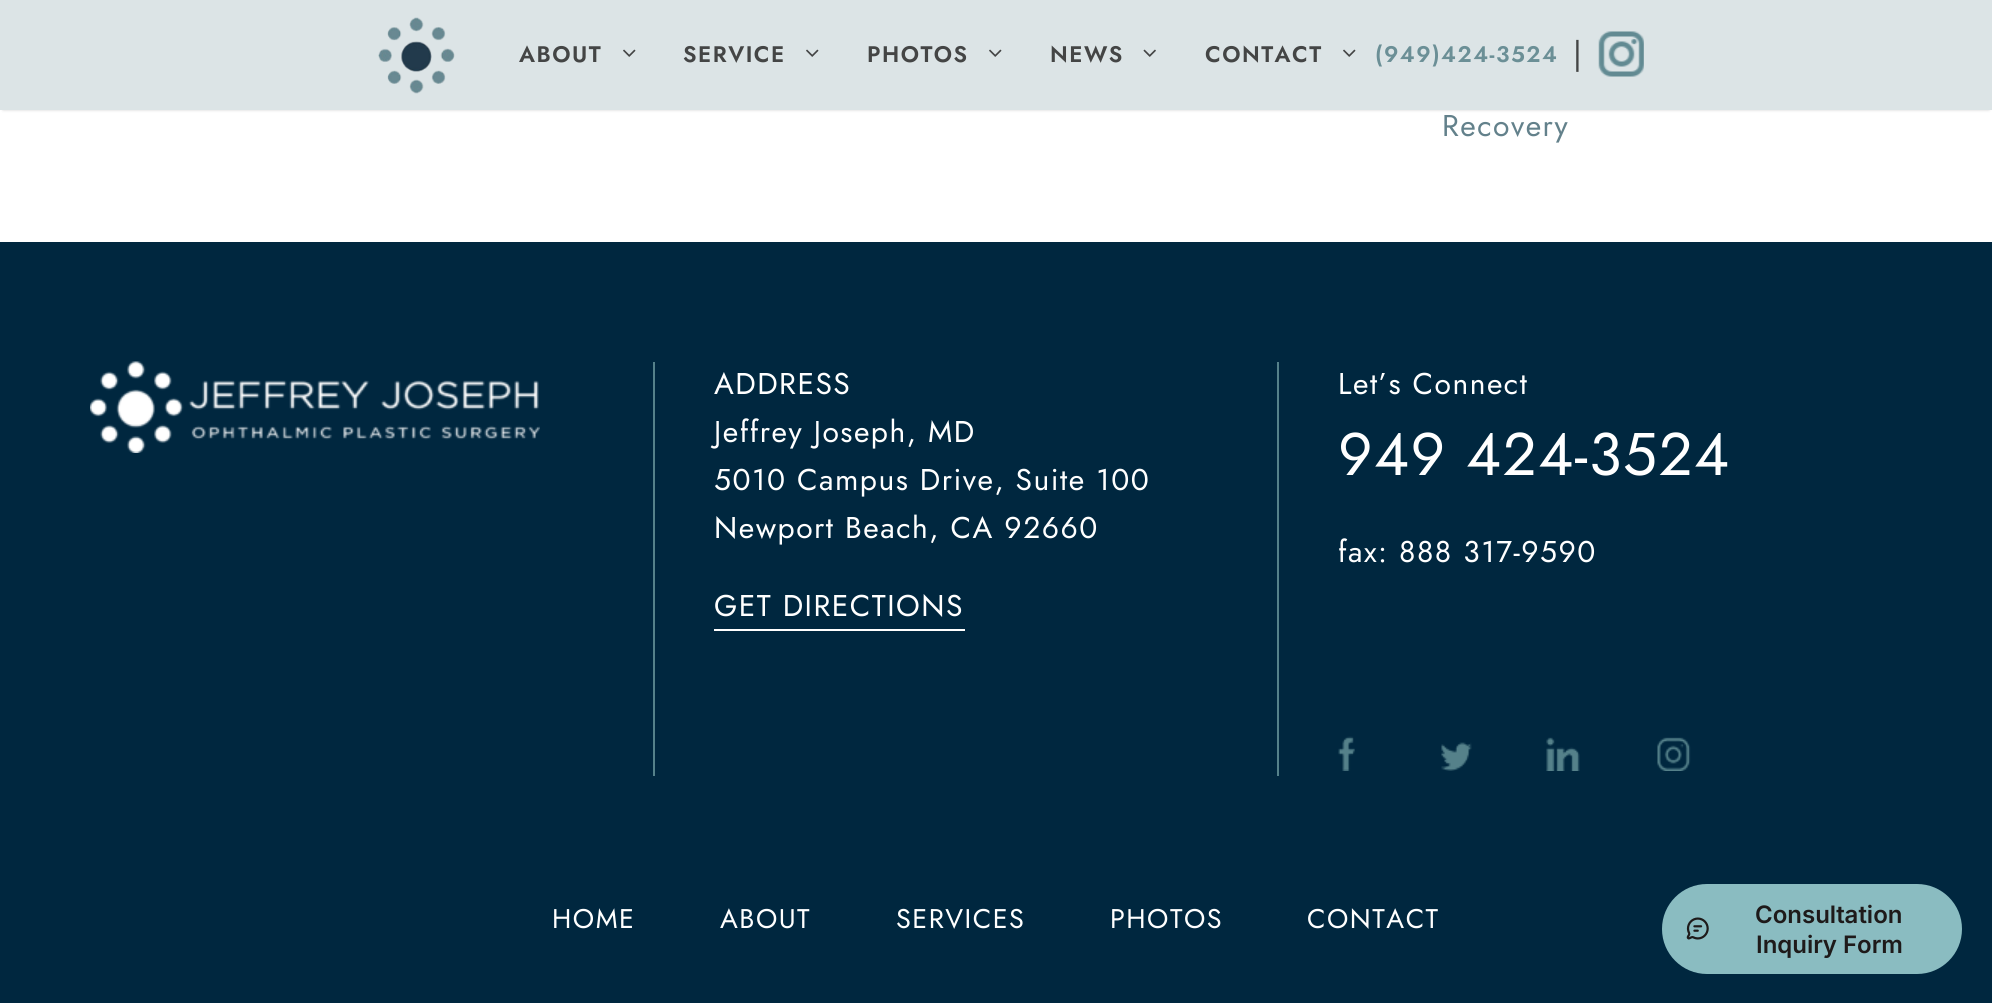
import math
import cairo

surface = cairo.ImageSurface(cairo.FORMAT_RGB24, 1992, 1003)
c = cairo.Context(surface)
options = cairo.FontOptions()
options.set_hint_metrics(cairo.HINT_METRICS_OFF)
options.set_hint_style(cairo.HINT_STYLE_NONE)
c.set_font_options(options)
c.set_miter_limit(4)
def C(code):
 c.set_source_rgb(*(v / 255 for v in bytes.fromhex(code[-6:])))
def F(family, size, italic, bold):
 c.select_font_face(family, cairo.FONT_SLANT_ITALIC if italic else cairo.FONT_SLANT_NORMAL, cairo.FONT_WEIGHT_BOLD if bold else cairo.FONT_WEIGHT_NORMAL)
 c.set_font_size(size)
def T(x, y, s):
 c.move_to(x, y)
 c.show_text(s)
def L(x, y, s, letter, word):
 c.move_to(x, y)
 for ch in s:
  c.show_text(ch)
  c.rel_move_to(letter + word * (ch == ' '), 0)
def R(x, y, w, h):
 c.rectangle(x, y, w, h)
 c.fill()
def Q(x, y, w, h, r):
 c.new_sub_path()
 for i, (u, v) in enumerate([(x + w - r, y + h - r), (x + r, y + h - r), (x + r, y + r), (x + w - r, y + r)]):
  c.arc(u, v, r, i * math.pi / 2, (i + 1) * math.pi / 2)
 c.close_path()
def S(x, y, w, h, r, blur, alpha):
 c.push_group_with_content(cairo.CONTENT_ALPHA)
 c.set_operator(cairo.OPERATOR_SOURCE)
 for i in range(15, -16, -2):
  e = blur * i / 6
  if min(w, h) + 2 * e > 0:
   c.set_source_rgba(0, 0, 0, alpha * math.erfc((i - 1) / 8.5) / 2)
   Q(x - e, y - e, w + 2 * e, h + 2 * e, max(0, min(r + e + blur * .6, min(w, h) / 2 + e)))
   c.fill()
 c.mask(c.pop_group())
def I(path, x, y, w, h):
 c.save()
 c.set_source_surface(cairo.ImageSurface.create_from_png(path), x, y)
 c.rectangle(x, y, w, h)
 c.fill()
 c.restore()
C('ffffff')
c.paint()
c.save()
c.set_fill_rule(cairo.FILL_RULE_EVEN_ODD)
c.new_path()
c.move_to(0,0)
c.line_to(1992,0)
c.line_to(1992,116)
c.line_to(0,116)
c.close_path()
c.move_to(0,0)
c.line_to(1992,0)
c.line_to(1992,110)
c.line_to(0,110)
c.close_path()
c.clip()
C('1a1a1a')
S(3,6,1986,104,0,1.5,.2)
c.restore()
c.set_source_rgba(0.847,0.882,0.894,0.9)
R(0,0,1992,110)
I('1.png',378,17,77,77)
F('Jost SemiBold',22.5,0,0)
C('444545')
L(519,62,'ABOUT',1.5,0)
I('2.png',623,49,13,8)
L(683,62,'SERVICE',1.5,0)
I('2.png',806,49,13,8)
L(867,62,'PHOTOS',1.5,0)
I('2.png',989,49,13,8)
L(1050,62,'NEWS',1.5,0)
I('3.png',1143,49,13,8)
L(1205,62,'CONTACT',1.5,0)
I('2.png',1343,49,13,8)
C('6b8f96')
L(1375,62,'(949)424-3524',1.5,0)
F('Jost',32,0,0)
C('444545')
L(1573,65,'|',1.5,0)
I('4.png',1598,31,46,46)
F('Jost',30,0,0)
C('63818b')
L(1442,136,'Recovery',1.5,0)
C('00273f')
R(0,242,1992,761)
C('55818a')
R(653,362,2,414)
I('5.png',90,361,450,92)
R(1277,362,2,414)
C('ffffff')
L(714,394,'ADDRESS',1.5,0)
L(714,442,'Jeffrey Joseph, MD',1.5,0)
L(714,490,'5010 Campus Drive, Suite 100',1.5,0)
L(714,538,'Newport Beach, CA 92660',1.5,0)
L(714,616,'GET DIRECTIONS',1.5,0)
R(714,629,251,2)
L(1338,394,'Let’s Connect',1.5,0)
F('Jost',60,0,0)
L(1338,475,'949 424-3524',1.5,0)
F('Jost',30,0,0)
L(1338,562,'fax: 888 317-9590',1.5,0)
I('6.png',1338,736,17,35)
I('7.png',1441,742,31,29)
I('8.png',1546,737,34,34)
I('9.png',1657,737,34,34)
F('Jost',27,0,0)
L(552,928,'HOME',1.5,0)
L(720,928,'ABOUT',1.5,0)
L(896,928,'SERVICES',1.5,0)
L(1110,928,'PHOTOS',1.5,0)
L(1307,928,'CONTACT',1.5,0)
C('8abcc1')
Q(1662,884,300,90,45)
c.fill()
I('10.png',1686,917,23,23)
F('Inter SemiBold',24,0,0)
C('1e1a1a')
T(1755,923,'Consultation')
T(1756,953,'Inquiry Form')
surface.write_to_png('o.png')
